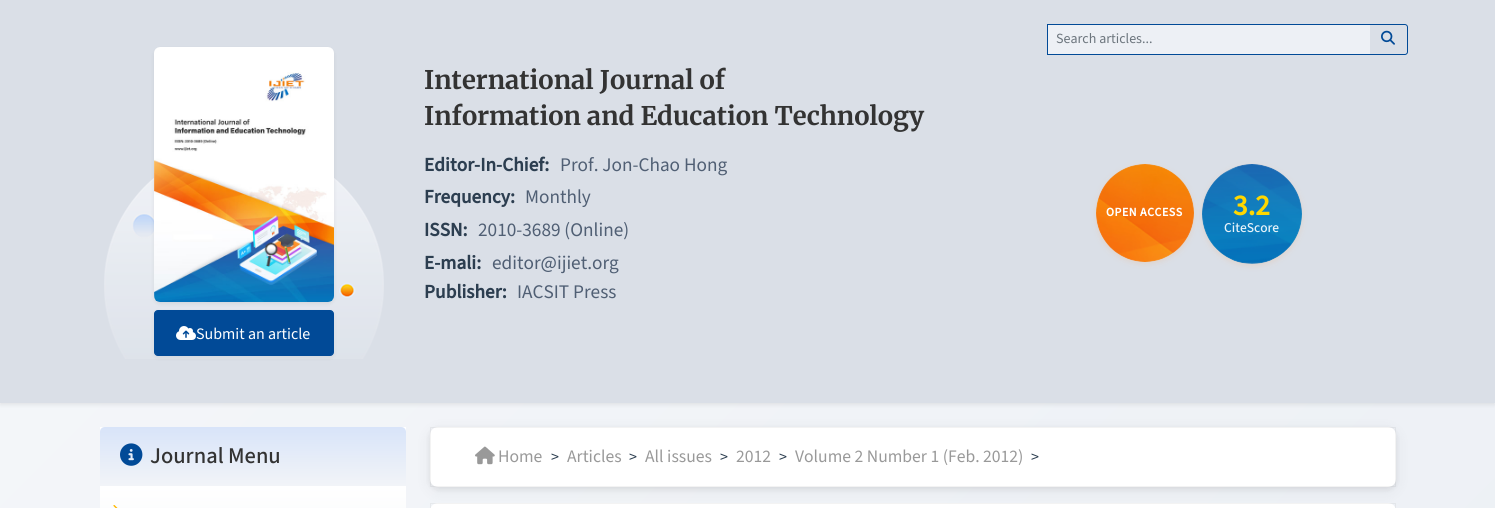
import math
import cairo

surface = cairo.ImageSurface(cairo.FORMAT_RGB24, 1495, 508)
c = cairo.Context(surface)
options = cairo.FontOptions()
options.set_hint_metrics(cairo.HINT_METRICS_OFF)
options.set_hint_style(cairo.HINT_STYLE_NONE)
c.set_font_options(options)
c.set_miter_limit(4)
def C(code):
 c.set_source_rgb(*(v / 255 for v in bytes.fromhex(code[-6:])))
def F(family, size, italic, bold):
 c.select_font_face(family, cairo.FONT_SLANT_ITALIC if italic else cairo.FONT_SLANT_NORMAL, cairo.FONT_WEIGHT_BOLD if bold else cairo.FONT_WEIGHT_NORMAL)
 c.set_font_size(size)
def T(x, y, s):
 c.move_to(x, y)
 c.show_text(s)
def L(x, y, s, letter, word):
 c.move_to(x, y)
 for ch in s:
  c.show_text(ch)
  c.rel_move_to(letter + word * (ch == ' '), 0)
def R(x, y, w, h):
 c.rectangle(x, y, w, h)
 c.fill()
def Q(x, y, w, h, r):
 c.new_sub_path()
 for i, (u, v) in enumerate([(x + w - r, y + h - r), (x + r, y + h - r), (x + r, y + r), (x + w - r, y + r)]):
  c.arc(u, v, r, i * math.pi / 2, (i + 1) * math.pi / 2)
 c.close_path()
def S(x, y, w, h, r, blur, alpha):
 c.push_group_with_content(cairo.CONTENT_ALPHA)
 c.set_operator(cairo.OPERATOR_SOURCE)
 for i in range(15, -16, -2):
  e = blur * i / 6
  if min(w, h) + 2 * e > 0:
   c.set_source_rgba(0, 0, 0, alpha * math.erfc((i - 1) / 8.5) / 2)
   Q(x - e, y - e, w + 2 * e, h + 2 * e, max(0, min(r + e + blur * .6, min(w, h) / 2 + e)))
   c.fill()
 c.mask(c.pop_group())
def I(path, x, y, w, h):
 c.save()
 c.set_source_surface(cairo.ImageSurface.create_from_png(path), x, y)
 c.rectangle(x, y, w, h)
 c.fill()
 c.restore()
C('ffffff')
c.paint()
gradient = cairo.LinearGradient(-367,367,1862,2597)
gradient.add_color_stop_rgba(0,0.961,0.969,0.98,1)
gradient.add_color_stop_rgba(1,0.894,0.914,0.941,1)
c.set_source(gradient)
R(0,403,1495,105)
C('000000')
S(0,2,1495,403,0,2,.07)
C('dadfe7')
R(0,0,1495,403)
C('edf0f5')
R(1048,25,322,29)
C('014a97')
R(1047,24,323,1)
R(1047,54,323,1)
R(1047,24,1,31)
F('Source Sans 3',14,0,0)
C('6c757d')
T(1056,43,'Search articles...')
C('014a97')
c.set_fill_rule(cairo.FILL_RULE_EVEN_ODD)
c.new_path()
c.move_to(1369,24)
c.line_to(1405,24)
c.curve_to(1406.5,24,1408,25.5,1408,27)
c.line_to(1408,52)
c.curve_to(1408,53.5,1406.5,55,1405,55)
c.line_to(1369,55)
c.close_path()
c.move_to(1369,25)
c.line_to(1405,25)
c.curve_to(1406,25,1407,26,1407,27)
c.line_to(1407,52)
c.curve_to(1407,53,1406,54,1405,54)
c.line_to(1369,54)
c.close_path()
c.fill()
I('1.png',1381,30,14,15)
F('Merriweather Light',25.6,0,0)
C('333333')
T(424,89,'International Journal of')
T(424,125,'Information and Education Technology')
F('Source Sans 3',19.25,0,1)
C('2c3e50')
T(424,171,'Editor-In-Chief:')
F('Source Sans 3',19.25,0,0)
C('505f74')
T(560,171,'Prof. Jon-Chao Hong')
F('Source Sans 3',19.25,0,1)
C('2c3e50')
T(424,203,'Frequency:')
F('Source Sans 3',19.25,0,0)
C('505f74')
T(525,203,'Monthly')
F('Source Sans 3',19.25,0,1)
C('2c3e50')
T(424,236,'ISSN:')
F('Source Sans 3',19.25,0,0)
C('505f74')
T(478,236,'2010-3689 (Online)')
F('Source Sans 3',19.25,0,1)
C('2c3e50')
T(424,269,'E-mali:')
F('Source Sans 3',19.25,0,0)
C('505f74')
T(492,269,'editor@ijiet.org')
F('Source Sans 3',19.25,0,1)
C('2c3e50')
T(424,298,'Publisher:')
F('Source Sans 3',19.25,0,0)
C('505f74')
T(517,298,'IACSIT Press')
C('f4a460')
S(1096,166,98,98,49,3,.2)
I('2.png',1096,164,98,98)
F('Source Sans 3',12,0,1)
C('ffffff')
L(1106,216,'OPEN ACCESS',.5,0)
C('f4a460')
S(1202,166,100,100,50,3,.2)
I('3.png',1202,164,100,100)
F('Source Sans 3',29,0,1)
C('ffd700')
T(1233,215,'3.2')
F('Source Sans 3 Medium',13.5,0,0)
C('e7f2f9')
T(1224,232,'CiteScore')
I('4.png',104,178,280,181)
C('000000')
S(154,49,180,255,6,2,.07)
I('5.png',154,47,180,255)
S(154,312,180,46,4,2,.05)
C('014a97')
Q(154.5,310.5,179,45,3.5)
c.fill_preserve()
c.set_line_width(1)
c.stroke()
I('6.png',176,326,20,14)
F('Source Sans 3',16,0,0)
C('ffffff')
T(196,339,'Submit an article')
C('000000')
S(430,431,966,60,8,8,.05)
C('ffffff')
R(100,427,306,5)
gradient = cairo.LinearGradient(253,486,253,427)
gradient.add_color_stop_rgba(0,0.949,0.957,0.973,1)
gradient.add_color_stop_rgba(1,0.847,0.894,0.976,1)
c.set_source(gradient)
c.new_path()
c.move_to(105,427)
c.line_to(401,427)
c.curve_to(404,427,406,429,406,432)
c.line_to(406,486)
c.line_to(100,486)
c.line_to(100,432)
c.curve_to(100,429,102,427,105,427)
c.close_path()
c.fill()
I('7.png',120,443,23,23)
F('Source Sans 3 Medium',22.5,0,0)
C('333333')
T(150,463,'Journal Menu')
gradient = cairo.LinearGradient(253,486,253,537)
gradient.add_color_stop_rgba(0,1,1,1,1)
gradient.add_color_stop_rgba(1,0.973,0.976,0.98,1)
c.set_source(gradient)
R(100,486,306,22)
I('8.png',113,505,5,3)
C('000000')
S(430,429,966,60,8,3,.08)
C('ffffff')
Q(430,427,966,60,8)
c.fill()
c.rectangle(430.5,427.5,965,59)
c.set_source_rgba(0,0,0,0.05)
c.stroke()
I('9.png',475,446,20,19)
F('Source Sans 3',17.6,0,0)
C('999999')
T(498,462,'Home')
F('Source Sans 3',16,0,0)
C('2c3e50')
T(551,462,'>')
F('Source Sans 3',17.6,0,0)
C('999999')
T(567,462,'Articles')
F('Source Sans 3',16,0,0)
C('2c3e50')
T(629,462,'>')
F('Source Sans 3',17.6,0,0)
C('999999')
T(645,462,'All issues')
F('Source Sans 3',16,0,0)
C('2c3e50')
T(720,462,'>')
F('Source Sans 3',17.6,0,0)
C('999999')
T(736,462,'2012')
F('Source Sans 3',16,0,0)
C('2c3e50')
T(779,462,'>')
F('Source Sans 3',17.6,0,0)
C('999999')
T(795,462,'Volume 2 Number 1 (Feb. 2012)')
F('Source Sans 3',16,0,0)
C('2c3e50')
T(1031,462,'>')
C('ffffff')
Q(430,503,966,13,8)
c.fill()
c.rectangle(430.5,503.5,965,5)
c.set_source_rgba(0,0,0,0.05)
c.stroke()
surface.write_to_png('o.png')
